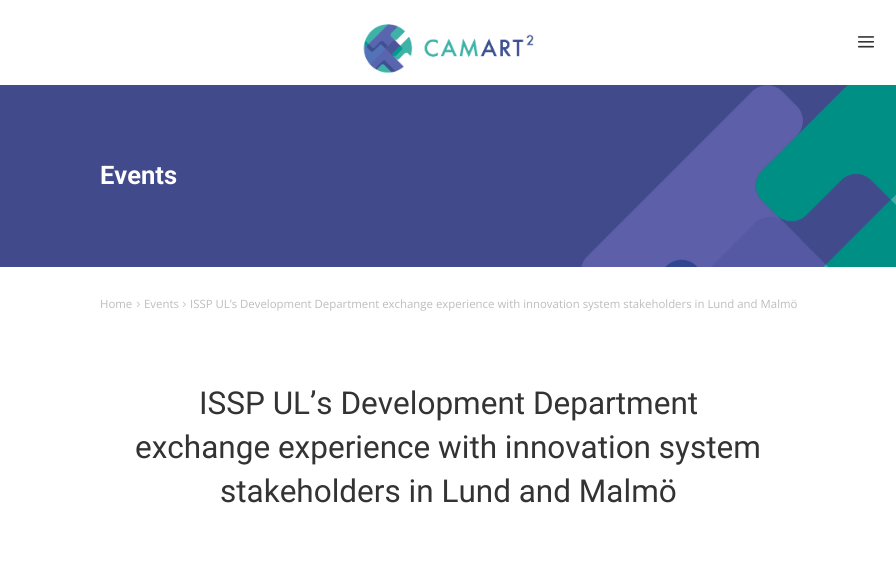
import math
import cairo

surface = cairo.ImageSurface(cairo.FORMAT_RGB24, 896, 567)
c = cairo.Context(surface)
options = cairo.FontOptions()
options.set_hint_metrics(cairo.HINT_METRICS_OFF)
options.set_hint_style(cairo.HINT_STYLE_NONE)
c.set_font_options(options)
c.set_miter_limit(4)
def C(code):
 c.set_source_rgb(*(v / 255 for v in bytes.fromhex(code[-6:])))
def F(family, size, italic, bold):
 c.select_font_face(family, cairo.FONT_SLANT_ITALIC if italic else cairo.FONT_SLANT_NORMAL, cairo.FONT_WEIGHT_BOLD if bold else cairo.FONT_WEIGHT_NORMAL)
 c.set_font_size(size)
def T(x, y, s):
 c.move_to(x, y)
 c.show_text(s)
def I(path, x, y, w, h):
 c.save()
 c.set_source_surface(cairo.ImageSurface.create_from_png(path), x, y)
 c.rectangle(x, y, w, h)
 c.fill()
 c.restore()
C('ffffff')
c.paint()
I('1.png',363,24,171,49)
I('2.png',857,36,18,12)
I('3.png',0,85,896,182)
F('Roboto',25.5,0,1)
C('ffffff')
T(100,184,'Events')
F('Open Sans',11.4,0,0)
C('bdbdbd')
T(100,308,'Home')
I('4.png',136,301,4,6)
T(144,308,'Events')
I('4.png',182,301,4,6)
T(190,308,'ISSP UL’s Development Department exchange experience with innovation system stakeholders in Lund and Malmö')
F('Roboto',31.5,0,0)
C('333333')
T(199,414,'ISSP UL’s Development Department')
T(135,458,'exchange experience with innovation system')
T(220,502,'stakeholders in Lund and Malmö')
surface.write_to_png('o.png')
